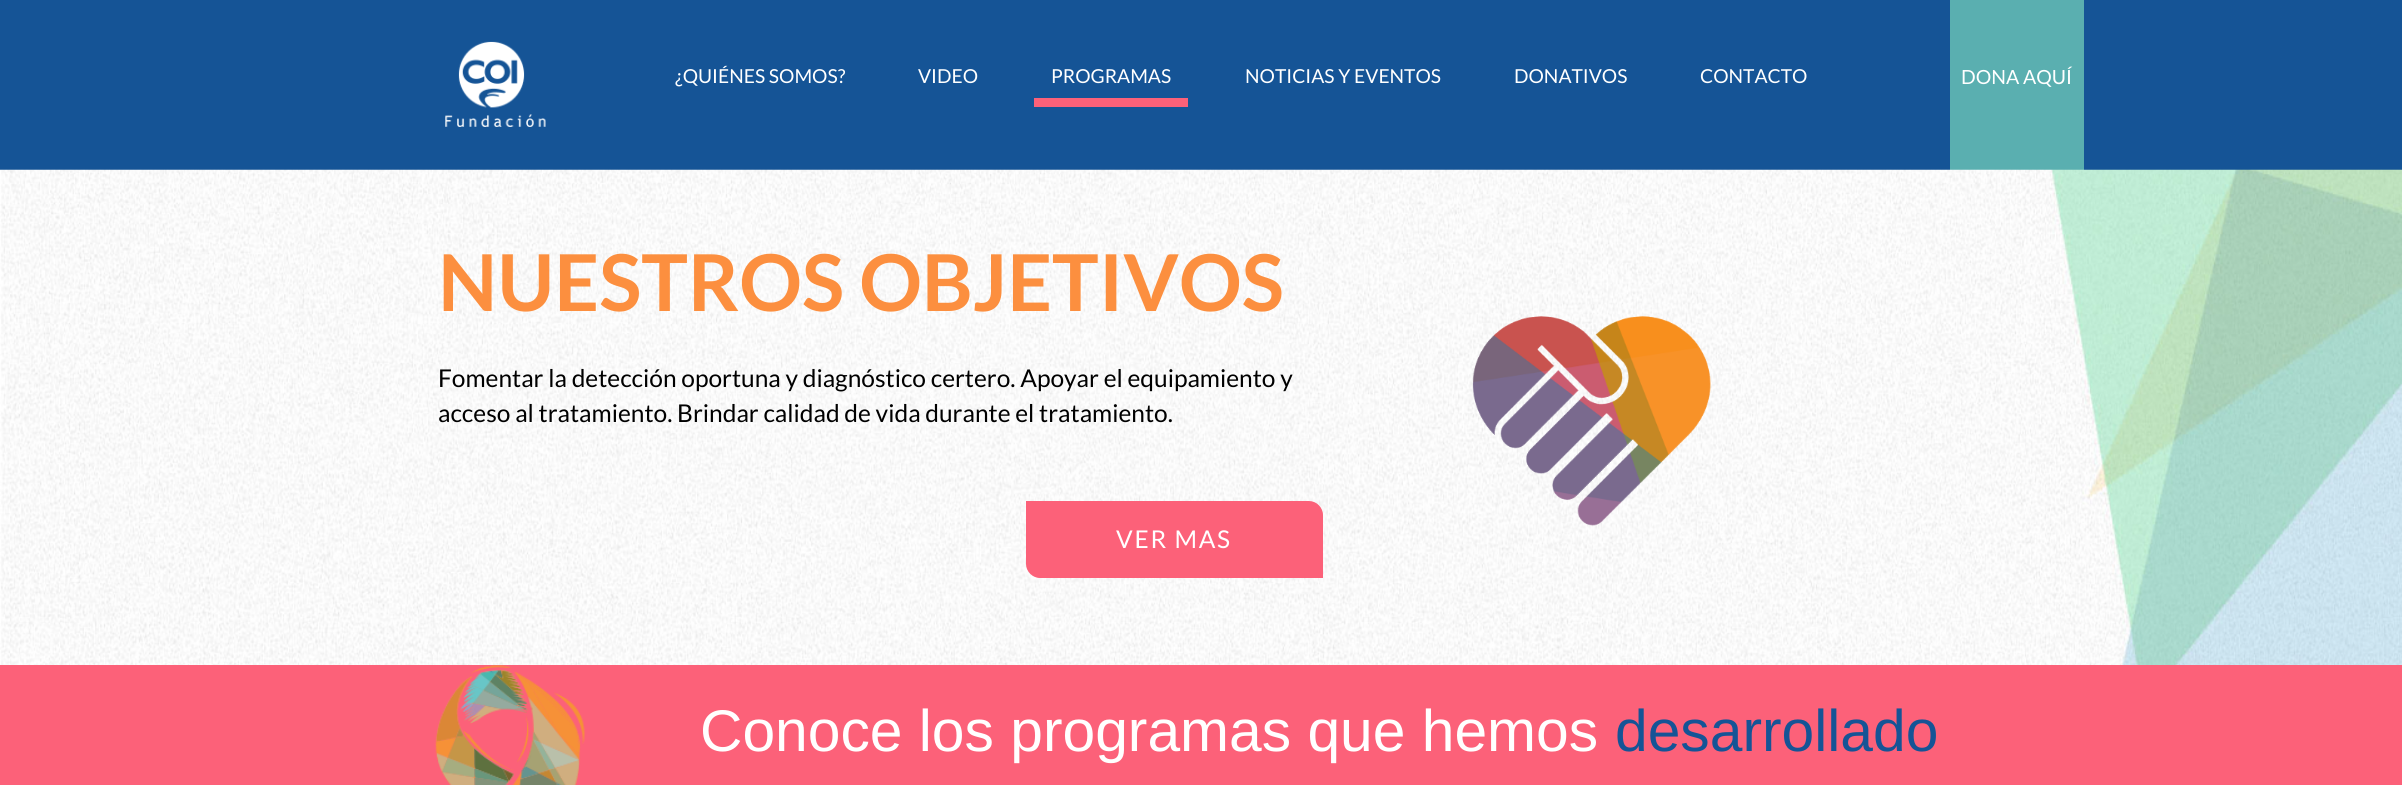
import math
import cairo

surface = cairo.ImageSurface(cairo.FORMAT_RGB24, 2402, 785)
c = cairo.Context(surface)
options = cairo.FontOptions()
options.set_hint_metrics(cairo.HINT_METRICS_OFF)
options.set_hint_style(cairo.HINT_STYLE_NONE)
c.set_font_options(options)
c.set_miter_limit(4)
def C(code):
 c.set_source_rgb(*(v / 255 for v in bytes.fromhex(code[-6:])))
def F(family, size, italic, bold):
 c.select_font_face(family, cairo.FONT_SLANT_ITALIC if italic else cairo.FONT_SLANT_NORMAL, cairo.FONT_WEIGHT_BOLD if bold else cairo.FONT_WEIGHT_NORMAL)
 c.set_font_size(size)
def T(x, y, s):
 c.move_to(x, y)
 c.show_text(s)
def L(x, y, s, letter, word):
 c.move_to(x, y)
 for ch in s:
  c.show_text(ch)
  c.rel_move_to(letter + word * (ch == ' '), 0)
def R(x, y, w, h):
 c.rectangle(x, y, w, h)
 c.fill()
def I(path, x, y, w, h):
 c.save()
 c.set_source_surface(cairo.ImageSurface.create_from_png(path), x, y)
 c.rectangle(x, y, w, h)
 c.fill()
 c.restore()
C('155496')
c.paint()
I('1.png',445,41,101,86)
F('Lato',19.25,0,0)
C('ffffff')
T(675,83,'¿QUIÉNES SOMOS?')
T(918,83,'VIDEO')
C('fc6179')
R(1034,98,154,9)
C('ffffff')
T(1051,83,'PROGRAMAS')
T(1245,83,'NOTICIAS Y EVENTOS')
T(1514,83,'DONATIVOS')
T(1700,83,'CONTACTO')
C('5aafb0')
R(1950,0,134,170)
F('Lato',19.5,0,0)
C('ffffff')
T(1961,84,'DONA AQUÍ')
I('2.png',0,169,2402,496)
F('Lato',78.4,0,1)
C('fc8f3f')
T(438,311,'NUESTROS OBJETIVOS')
F('Lato',24.5,0,0)
C('000000')
T(438,387,'Fomentar la detección oportuna y diagnóstico certero. Apoyar el equipamiento y')
T(438,422,'acceso al tratamiento. Brindar calidad de vida durante el tratamiento.')
C('fc6179')
c.new_path()
c.move_to(1026,501)
c.line_to(1309,501)
c.curve_to(1316.5,501,1323,507.5,1323,515)
c.line_to(1323,578)
c.line_to(1040,578)
c.curve_to(1032.5,578,1026,571.5,1026,564)
c.close_path()
c.fill()
C('ffffff')
L(1116,548,'VER MAS',1.75,0)
I('3.png',1472,316,239,210)
C('fc6179')
R(0,665,2402,120)
I('4.png',435,665,150,120)
F('Liberation Sans',58.75,0,0)
C('ffffff')
T(700,751,'Conoce los programas que hemos')
C('155496')
T(1615,751,'desarrollado')
surface.write_to_png('o.png')
